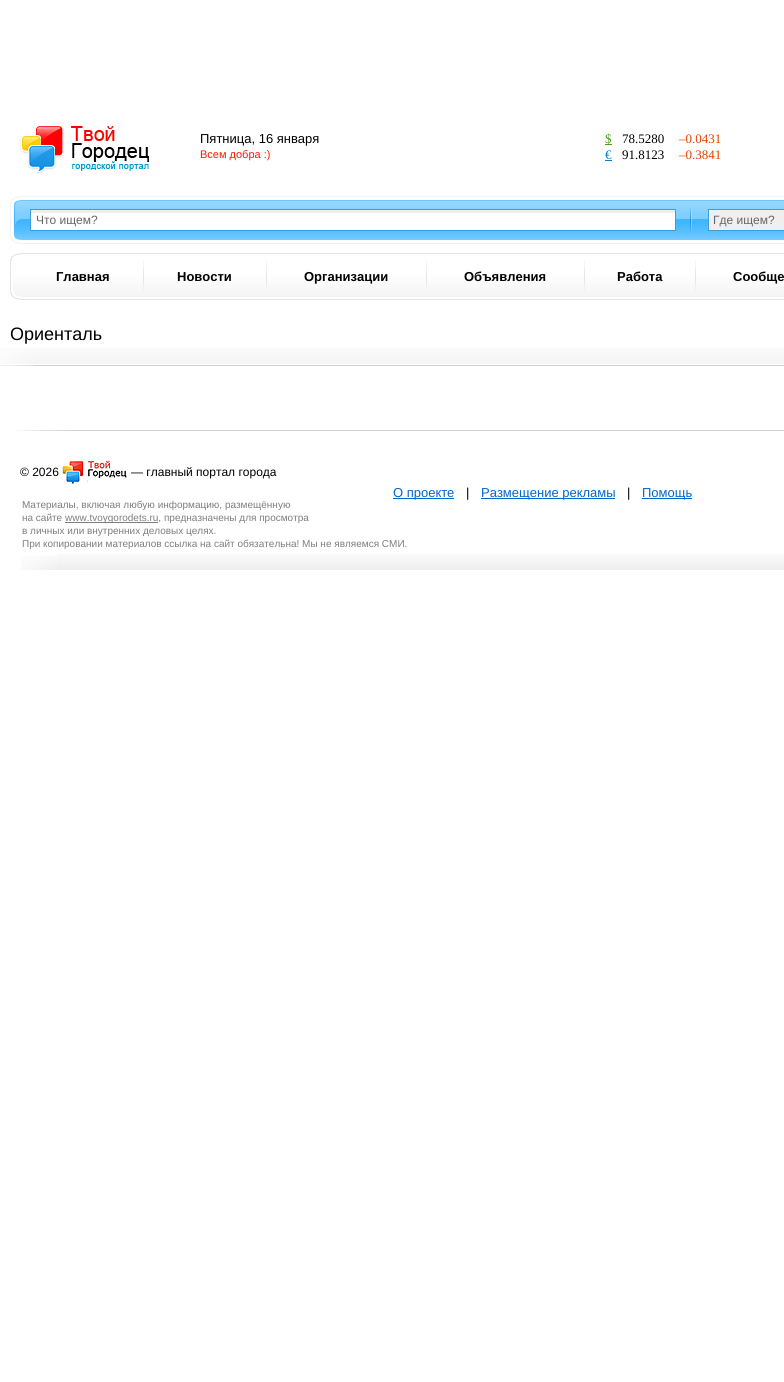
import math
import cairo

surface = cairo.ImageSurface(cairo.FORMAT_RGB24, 784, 1382)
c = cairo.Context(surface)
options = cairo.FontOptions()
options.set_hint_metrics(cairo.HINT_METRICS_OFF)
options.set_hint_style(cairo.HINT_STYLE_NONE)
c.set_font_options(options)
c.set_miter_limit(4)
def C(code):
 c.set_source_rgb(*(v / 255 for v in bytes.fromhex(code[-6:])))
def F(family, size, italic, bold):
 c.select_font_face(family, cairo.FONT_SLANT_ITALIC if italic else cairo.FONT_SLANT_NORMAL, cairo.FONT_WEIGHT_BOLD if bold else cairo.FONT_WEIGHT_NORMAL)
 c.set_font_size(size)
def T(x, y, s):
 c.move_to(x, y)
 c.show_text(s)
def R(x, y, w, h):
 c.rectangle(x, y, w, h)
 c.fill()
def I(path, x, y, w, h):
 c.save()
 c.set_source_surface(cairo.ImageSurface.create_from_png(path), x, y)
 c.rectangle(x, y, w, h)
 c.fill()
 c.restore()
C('ffffff')
c.paint()
I('1.png',20,126,129,48)
F('Liberation Sans',13,0,0)
C('000000')
T(200,143,'Пятница, 16 января')
F('Liberation Sans',11,0,0)
C('ff1701')
T(200,158,'Всем добра :)')
F('Liberation Serif',13,0,0)
C('489f10')
T(605,143,'$')
R(605,144,7,1)
C('000000')
T(622,143,'78.5280')
C('e64100')
T(679,143,'–0.0431')
C('037dd3')
T(605,159,'€')
R(605,160,7,1)
C('000000')
T(622,159,'91.8123')
C('e64100')
T(679,159,'–0.3841')
I('2.png',21,196,763,48)
I('3.png',10,196,11,48)
C('ffffff')
R(31,213,644,17)
C('eaeff2')
R(30,210,646,3)
c.rectangle(30.5,209.5,645,21)
C('3c9ed8')
c.set_line_width(1)
c.stroke()
F('Liberation Sans',12,0,0)
C('666666')
T(36,224,'Что ищем?')
I('4.png',690,208,2,24)
c.rectangle(708.5,209.5,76,21)
C('3c9ed8')
c.stroke()
C('efefef')
R(709,210,75,20)
C('666666')
T(713,224,'Где ищем?')
I('5.png',22,253,121,47)
I('6.png',10,253,12,47)
F('Liberation Sans',13,0,1)
C('000000')
T(56,281,'Главная')
I('7.png',143,253,123,47)
I('8.png',143,260,1,31)
T(177,281,'Новости')
I('9.png',266,253,160,47)
I('8.png',266,260,1,31)
T(304,281,'Организации')
I('10.png',426,253,158,47)
I('8.png',426,260,1,31)
T(464,281,'Объявления')
I('11.png',584,253,111,47)
I('8.png',584,260,1,31)
T(617,281,'Работа')
I('12.png',695,253,89,47)
I('8.png',695,260,1,31)
T(733,281,'Сообще')
I('13.png',35,348,749,18)
F('Liberation Sans',18,0,0)
T(10,340,'Ориенталь')
I('14.png',0,348,35,18)
I('15.png',15,430,769,1)
F('Liberation Sans',12,0,0)
T(20,476,'© 2026')
I('16.png',62,460,65,25)
T(131,476,'— главный портал города')
C('0066cc')
R(393,498,61,1)
F('Liberation Sans',13,0,0)
T(393,497,'О проекте')
C('000000')
T(466,497,'|')
C('0066cc')
R(481,498,134,1)
T(481,497,'Размещение рекламы')
C('000000')
T(627,497,'|')
C('0066cc')
R(642,498,50,1)
T(642,497,'Помощь')
F('Liberation Sans',10,0,0)
C('7e7e7e')
T(22,508,'Материалы, включая любую информацию, размещённую')
T(22,521,'на сайте')
R(65,522,93,1)
T(65,521,'www.tvoygorodets.ru, предназначены для просмотра')
T(22,534,'в личных или внутренних деловых целях.')
T(22,547,'При копировании материалов ссылка на сайт обязательна! Мы не являемся СМИ.')
I('17.png',21,556,36,14)
I('18.png',57,554,727,16)
surface.write_to_png('o.png')
